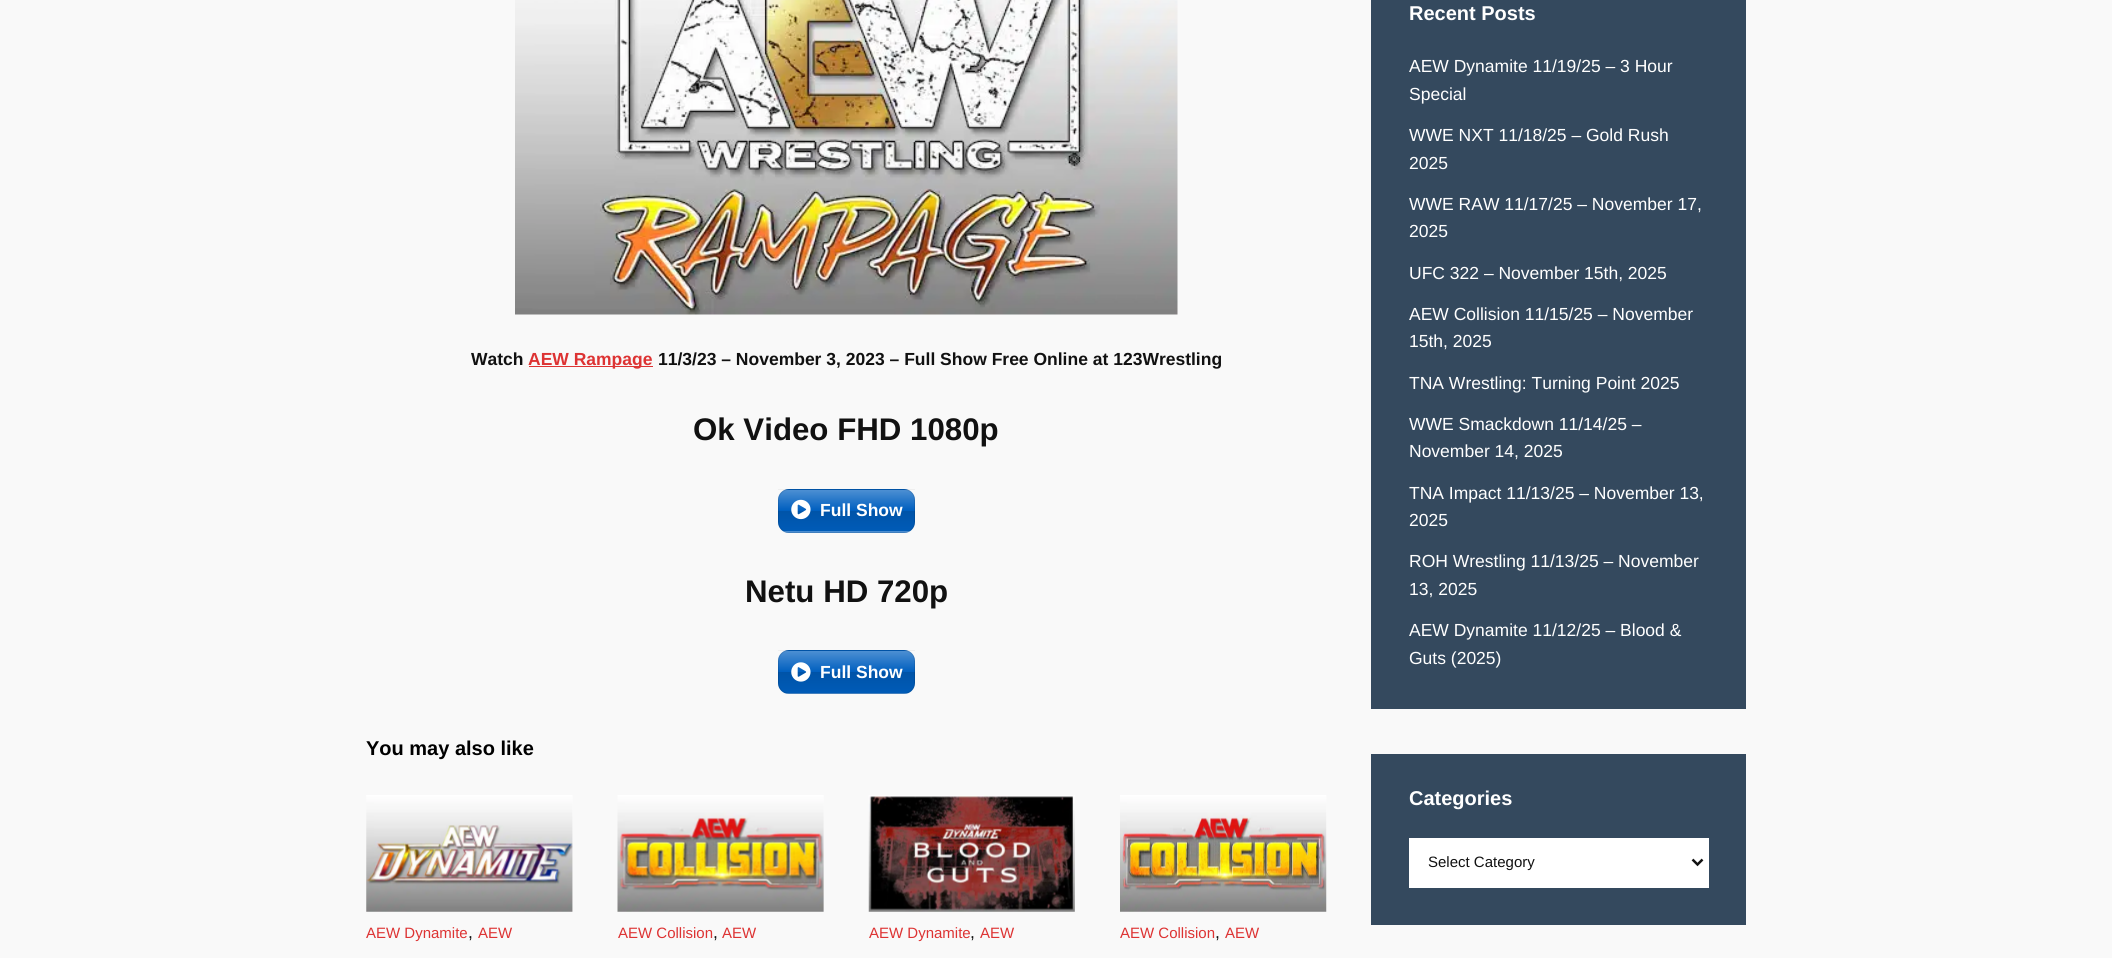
import math
import cairo

surface = cairo.ImageSurface(cairo.FORMAT_RGB24, 2112, 958)
c = cairo.Context(surface)
options = cairo.FontOptions()
options.set_hint_metrics(cairo.HINT_METRICS_OFF)
options.set_hint_style(cairo.HINT_STYLE_NONE)
c.set_font_options(options)
c.set_miter_limit(4)
def C(code):
 c.set_source_rgb(*(v / 255 for v in bytes.fromhex(code[-6:])))
def F(family, size, italic, bold):
 c.select_font_face(family, cairo.FONT_SLANT_ITALIC if italic else cairo.FONT_SLANT_NORMAL, cairo.FONT_WEIGHT_BOLD if bold else cairo.FONT_WEIGHT_NORMAL)
 c.set_font_size(size)
def T(x, y, s):
 c.move_to(x, y)
 c.show_text(s)
def R(x, y, w, h):
 c.rectangle(x, y, w, h)
 c.fill()
def Q(x, y, w, h, r):
 c.new_sub_path()
 for i, (u, v) in enumerate([(x + w - r, y + h - r), (x + r, y + h - r), (x + r, y + r), (x + w - r, y + r)]):
  c.arc(u, v, r, i * math.pi / 2, (i + 1) * math.pi / 2)
 c.close_path()
def I(path, x, y, w, h):
 c.save()
 c.set_source_surface(cairo.ImageSurface.create_from_png(path), x, y)
 c.rectangle(x, y, w, h)
 c.fill()
 c.restore()
C('f9f9f9')
c.paint()
I('1.png',515,0,663,315)
F('Liberation Sans',17.5,0,1)
C('111111')
T(471,365,'Watch')
C('dd3333')
R(529,366,124,1)
T(528,365,'AEW Rampage')
C('111111')
T(658,365,'11/3/23 – November 3, 2023 – Full Show Free Online at 123Wrestling')
F('Liberation Sans',31.25,0,1)
T(693,440,'Ok Video FHD 1080p')
C('005fbf')
Q(778,489,137,44,11)
c.fill()
gradient = cairo.LinearGradient(846,449,846,490)
gradient.add_color_stop_rgba(0,1,1,1,.3)
gradient.add_color_stop_rgba(.5,1,1,1,0)
gradient.add_color_stop_rgba(.5,0,0,0,0)
gradient.add_color_stop_rgba(.51,0,0,0,.12)
gradient.add_color_stop_rgba(1,0,0,0,.04)
c.set_source(gradient)
R(778,489,137,1)
c.save()
Q(778,489,137,44,11)
c.clip()
gradient = cairo.LinearGradient(846,490,846,531)
gradient.add_color_stop_rgba(0,1,1,1,.3)
gradient.add_color_stop_rgba(.5,1,1,1,0)
gradient.add_color_stop_rgba(.5,0,0,0,0)
gradient.add_color_stop_rgba(.51,0,0,0,.12)
gradient.add_color_stop_rgba(1,0,0,0,.04)
c.set_source(gradient)
R(778,490,137,41)
gradient = cairo.LinearGradient(846,531,846,573)
gradient.add_color_stop_rgba(0,1,1,1,.3)
gradient.add_color_stop_rgba(.5,1,1,1,0)
gradient.add_color_stop_rgba(.5,0,0,0,0)
gradient.add_color_stop_rgba(.51,0,0,0,.12)
gradient.add_color_stop_rgba(1,0,0,0,.04)
c.set_source(gradient)
R(778,531,137,2)
c.restore()
Q(778.5,489.5,136,43,10.5)
c.set_source_rgba(0,0,0,0.1)
c.set_line_width(1)
c.stroke()
I('2.png',791,499,20,21)
F('Liberation Sans',17.5,0,1)
C('ffffff')
T(820,516,'Full Show')
F('Liberation Sans',31.25,0,1)
C('111111')
T(745,602,'Netu HD 720p')
C('005fbf')
Q(778,650,137,44,11)
c.fill()
gradient = cairo.LinearGradient(846,610,846,651)
gradient.add_color_stop_rgba(0,1,1,1,.3)
gradient.add_color_stop_rgba(.5,1,1,1,0)
gradient.add_color_stop_rgba(.5,0,0,0,0)
gradient.add_color_stop_rgba(.51,0,0,0,.12)
gradient.add_color_stop_rgba(1,0,0,0,.04)
c.set_source(gradient)
R(778,650,137,1)
c.save()
Q(778,650,137,44,11)
c.clip()
gradient = cairo.LinearGradient(846,651,846,693)
gradient.add_color_stop_rgba(0,1,1,1,.3)
gradient.add_color_stop_rgba(.5,1,1,1,0)
gradient.add_color_stop_rgba(.5,0,0,0,0)
gradient.add_color_stop_rgba(.51,0,0,0,.12)
gradient.add_color_stop_rgba(1,0,0,0,.04)
c.set_source(gradient)
R(778,651,137,42)
gradient = cairo.LinearGradient(846,693,846,734)
gradient.add_color_stop_rgba(0,1,1,1,.3)
gradient.add_color_stop_rgba(.5,1,1,1,0)
gradient.add_color_stop_rgba(.5,0,0,0,0)
gradient.add_color_stop_rgba(.51,0,0,0,.12)
gradient.add_color_stop_rgba(1,0,0,0,.04)
c.set_source(gradient)
R(778,693,137,1)
c.restore()
Q(778.5,650.5,136,43,10.5)
c.set_source_rgba(0,0,0,0.1)
c.stroke()
I('3.png',791,662,20,20)
F('Liberation Sans',17.5,0,1)
C('ffffff')
T(820,678,'Full Show')
F('Liberation Sans',20,0,1)
C('000000')
T(366,755,'You may also like')
I('4.png',366,795,207,117)
F('Liberation Sans',15,0,0)
C('dd3333')
T(366,938,'AEW Dynamite')
T(478,938,'AEW')
F('Liberation Sans',17.5,0,0)
C('111111')
T(468,938,',')
I('5.png',617,795,207,117)
F('Liberation Sans',15,0,0)
C('dd3333')
T(618,938,'AEW Collision')
T(722,938,'AEW')
F('Liberation Sans',17.5,0,0)
C('111111')
T(713,938,',')
I('6.png',868,795,207,117)
F('Liberation Sans',15,0,0)
C('dd3333')
T(869,938,'AEW Dynamite')
T(980,938,'AEW')
F('Liberation Sans',17.5,0,0)
C('111111')
T(970,938,',')
I('7.png',1120,795,207,117)
F('Liberation Sans',15,0,0)
C('dd3333')
T(1120,938,'AEW Collision')
T(1225,938,'AEW')
F('Liberation Sans',17.5,0,0)
C('111111')
T(1215,938,',')
C('34495e')
R(1371,0,375,709)
F('Liberation Sans',20,0,1)
C('ffffff')
T(1409,20,'Recent Posts')
F('Liberation Sans',17.5,0,0)
T(1409,72,'AEW Dynamite 11/19/25 – 3 Hour')
T(1409,100,'Special')
T(1409,141,'WWE NXT 11/18/25 – Gold Rush')
T(1409,169,'2025')
T(1409,210,'WWE RAW 11/17/25 – November 17,')
T(1409,237,'2025')
T(1409,279,'UFC 322 – November 15th, 2025')
T(1409,320,'AEW Collision 11/15/25 – November')
T(1409,347,'15th, 2025')
T(1409,389,'TNA Wrestling: Turning Point 2025')
T(1409,430,'WWE Smackdown 11/14/25 –')
T(1409,457,'November 14, 2025')
T(1409,499,'TNA Impact 11/13/25 – November 13,')
T(1409,526,'2025')
T(1409,567,'ROH Wrestling 11/13/25 – November')
T(1409,595,'13, 2025')
T(1409,636,'AEW Dynamite 11/12/25 – Blood &')
T(1409,664,'Guts (2025)')
C('34495e')
R(1371,754,375,171)
F('Liberation Sans',20,0,1)
C('ffffff')
T(1409,805,'Categories')
R(1409,838,300,50)
c.new_path()
c.move_to(1692.5,859.5)
c.line_to(1697.5,864.5)
c.line_to(1702.5,859.5)
C('111111')
c.set_line_width(2.5)
c.stroke()
F('Liberation Sans',15,0,0)
T(1428,867,'Select Category')
surface.write_to_png('o.png')
